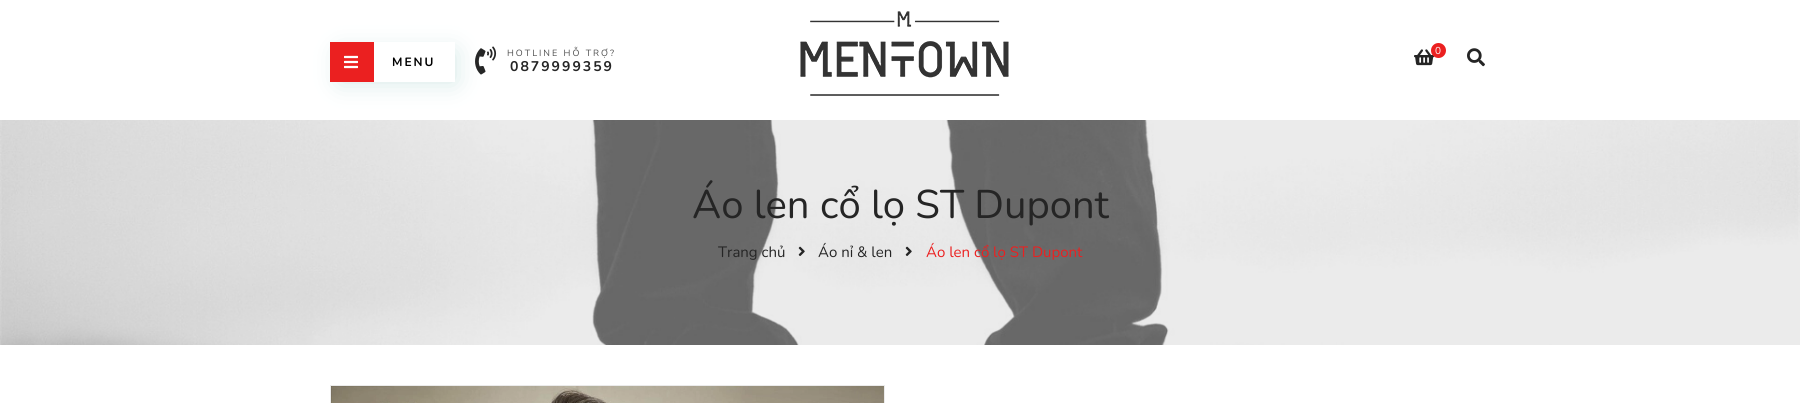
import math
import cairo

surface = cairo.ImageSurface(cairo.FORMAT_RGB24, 1800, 403)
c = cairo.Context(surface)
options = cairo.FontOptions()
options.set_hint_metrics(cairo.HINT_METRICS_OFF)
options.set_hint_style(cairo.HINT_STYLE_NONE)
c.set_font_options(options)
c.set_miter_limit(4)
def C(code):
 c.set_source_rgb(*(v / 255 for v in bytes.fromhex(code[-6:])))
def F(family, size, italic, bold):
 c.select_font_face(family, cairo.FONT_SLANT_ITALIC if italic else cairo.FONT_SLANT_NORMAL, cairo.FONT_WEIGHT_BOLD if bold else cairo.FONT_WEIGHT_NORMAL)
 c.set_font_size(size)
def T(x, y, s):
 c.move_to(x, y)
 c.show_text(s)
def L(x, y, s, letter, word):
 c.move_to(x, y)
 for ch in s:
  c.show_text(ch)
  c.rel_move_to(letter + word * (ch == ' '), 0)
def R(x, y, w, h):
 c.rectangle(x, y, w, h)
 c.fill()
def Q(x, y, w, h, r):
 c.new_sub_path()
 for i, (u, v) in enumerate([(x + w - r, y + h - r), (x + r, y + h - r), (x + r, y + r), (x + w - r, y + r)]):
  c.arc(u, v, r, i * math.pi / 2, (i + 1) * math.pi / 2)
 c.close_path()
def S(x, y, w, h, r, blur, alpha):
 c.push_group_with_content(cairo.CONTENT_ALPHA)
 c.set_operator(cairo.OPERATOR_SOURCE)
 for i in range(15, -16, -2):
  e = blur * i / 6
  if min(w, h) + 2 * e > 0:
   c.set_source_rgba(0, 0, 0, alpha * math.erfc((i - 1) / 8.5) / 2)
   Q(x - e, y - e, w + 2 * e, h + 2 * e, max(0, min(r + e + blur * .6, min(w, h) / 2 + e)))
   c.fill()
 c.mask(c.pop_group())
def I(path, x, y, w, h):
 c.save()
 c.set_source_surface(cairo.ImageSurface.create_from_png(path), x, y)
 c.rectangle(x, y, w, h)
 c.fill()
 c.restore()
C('ffffff')
c.paint()
I('2.png',475,46,22,29)
I('6.png',0,120,1800,225)
c.save()
c.set_fill_rule(cairo.FILL_RULE_EVEN_ODD)
c.new_path()
c.move_to(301,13)
c.line_to(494,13)
c.line_to(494,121)
c.line_to(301,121)
c.close_path()
c.move_to(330,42)
c.line_to(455,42)
c.line_to(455,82)
c.line_to(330,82)
c.close_path()
c.clip()
C('8fc5c0')
S(340,52,115,30,0,12.5,.4)
c.restore()
C('eb2020')
R(330,42,44,40)
I('1.png',344,55,14,14)
F('Nunito',12,0,1)
C('000000')
L(392,66,'MENU',2,0)
F('Nunito',9,0,0)
C('4d4d4d')
L(507,56,'HOTLINE HỖ TRỢ?',2,0)
F('Nunito',14,0,1)
C('252525')
L(510,71,'0879999359',2,0)
I('3.png',800,11,209,85)
I('4.png',1414,49,21,17)
C('eb2020')
c.arc(1438.5,50.5,7.5,0,2 * math.pi)
c.fill()
F('Nunito',10,0,0)
C('ffffff')
T(1435,54,'0')
I('5.png',1467,48,18,19)
F('Nunito',40,0,0)
C('252525')
T(692,218,'Áo len cổ lọ ST Dupont')
F('Nunito',15,0,0)
T(718,257,'Trang chủ')
I('7.png',798,246,7,10)
T(818,257,'Áo nỉ & len')
I('8.png',905,246,7,10)
C('eb2020')
T(926,257,'Áo len cổ lọ ST Dupont')
c.rectangle(330.5,385.5,554,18)
C('ebebeb')
c.set_line_width(1)
c.stroke()
I('9.png',331,386,553,17)
surface.write_to_png('o.png')
